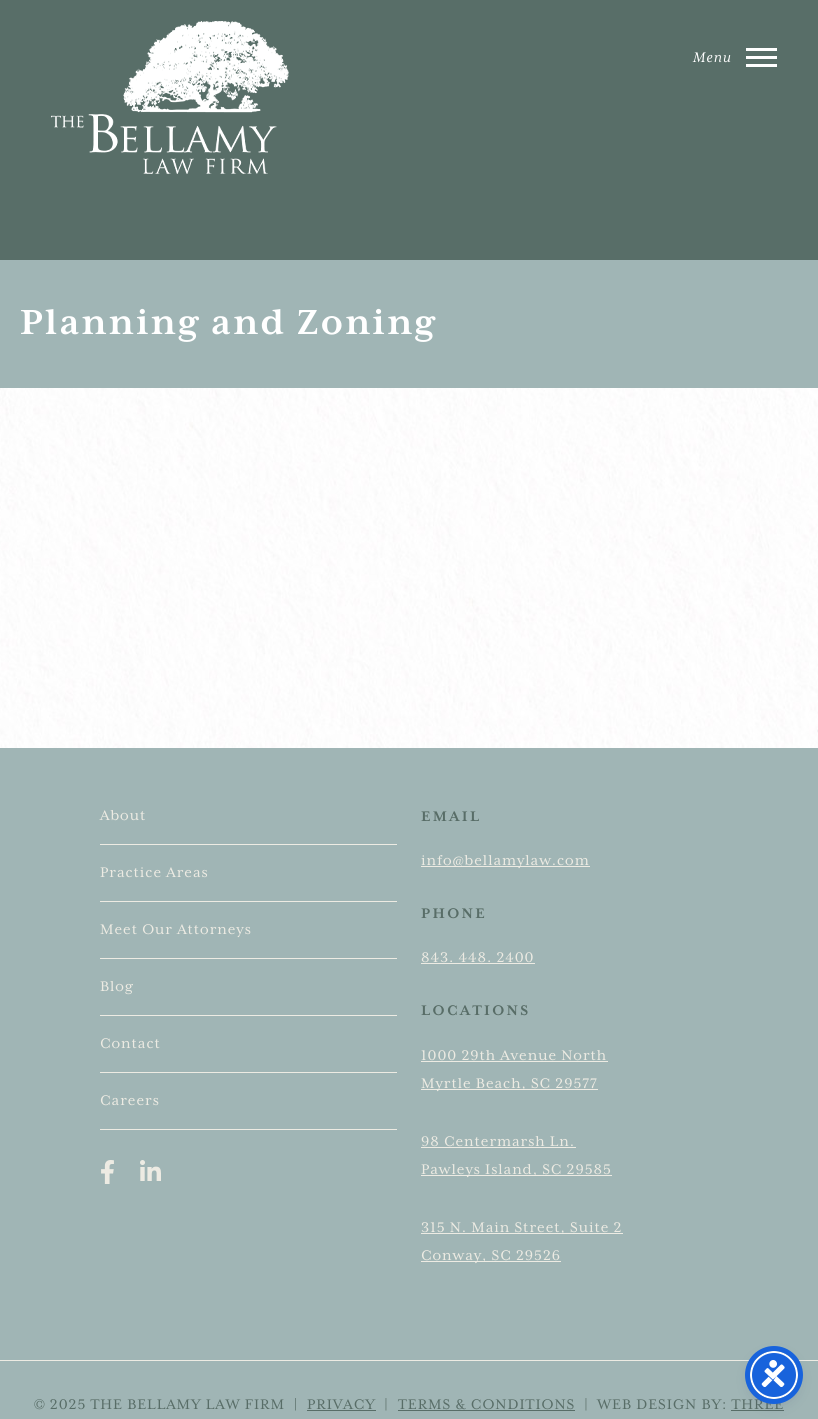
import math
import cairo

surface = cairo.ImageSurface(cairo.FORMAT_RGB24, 818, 1419)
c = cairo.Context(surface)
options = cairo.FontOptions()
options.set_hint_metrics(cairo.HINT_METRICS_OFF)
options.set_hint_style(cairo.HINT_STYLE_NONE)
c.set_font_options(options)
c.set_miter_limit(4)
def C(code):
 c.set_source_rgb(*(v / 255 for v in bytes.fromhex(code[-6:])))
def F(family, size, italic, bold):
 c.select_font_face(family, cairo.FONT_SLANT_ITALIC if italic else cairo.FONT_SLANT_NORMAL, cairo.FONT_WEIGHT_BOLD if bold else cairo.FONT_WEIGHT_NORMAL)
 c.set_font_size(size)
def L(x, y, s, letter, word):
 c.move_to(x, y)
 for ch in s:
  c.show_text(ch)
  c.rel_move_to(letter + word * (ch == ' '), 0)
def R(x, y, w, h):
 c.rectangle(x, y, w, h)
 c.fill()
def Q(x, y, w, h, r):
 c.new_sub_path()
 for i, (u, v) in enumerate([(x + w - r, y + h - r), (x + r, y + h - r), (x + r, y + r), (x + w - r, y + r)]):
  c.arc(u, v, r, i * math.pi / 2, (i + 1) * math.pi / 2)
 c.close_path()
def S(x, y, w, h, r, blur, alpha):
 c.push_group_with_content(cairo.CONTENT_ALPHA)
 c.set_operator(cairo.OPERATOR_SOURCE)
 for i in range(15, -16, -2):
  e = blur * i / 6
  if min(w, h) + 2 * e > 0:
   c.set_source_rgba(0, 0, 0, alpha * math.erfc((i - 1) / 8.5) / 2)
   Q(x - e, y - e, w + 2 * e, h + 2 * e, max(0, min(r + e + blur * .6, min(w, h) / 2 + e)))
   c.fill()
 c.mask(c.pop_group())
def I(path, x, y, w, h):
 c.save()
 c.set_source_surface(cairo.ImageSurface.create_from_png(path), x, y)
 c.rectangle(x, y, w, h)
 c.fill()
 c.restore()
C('ffffff')
c.paint()
I('1.png',0,388,818,360)
C('586e68')
R(0,0,818,260)
I('2.png',51,21,238,153)
F('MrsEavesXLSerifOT',16,1,0)
C('ffffff')
L(693,62,'Menu',.95,0)
R(746,56,31,3)
R(746,48,31,3)
R(746,64,31,3)
C('a0b5b5')
R(0,260,818,128)
F('MrsEavesXLSerifOT',40,0,1)
C('ffffff')
L(20,334,'Planning and Zoning',2.4,0)
C('a0b5b5')
R(0,748,818,671)
C('edebe3')
R(100,844,297,1)
F('MrsEavesXLSerifOT',16,0,0)
L(100,820,'About',.95,0)
R(100,901,297,1)
L(100,877,'Practice Areas',.95,0)
R(100,958,297,1)
L(100,934,'Meet Our Attorneys',.95,0)
R(100,1015,297,1)
L(100,991,'Blog',.95,0)
R(100,1072,297,1)
L(100,1048,'Contact',.95,0)
R(100,1129,297,1)
L(100,1105,'Careers',.95,0)
I('3.png',101,1160,13,24)
I('4.png',140,1160,21,21)
F('MrsEavesXLSerifOT',16,0,1)
C('586d67')
L(421,821,'EMAIL',2.4,0)
C('edebe3')
R(421,866,169,1)
F('MrsEavesXLSerifOT',16,0,0)
L(421,865,'info@bellamylaw.com',.95,0)
F('MrsEavesXLSerifOT',16,0,1)
C('586d67')
L(421,918,'PHONE',2.4,0)
F('MrsEavesXLSerifOT',16,0,0)
C('edebe3')
L(421,962,'843. 448. 2400',.95,0)
R(421,963,114,1)
F('MrsEavesXLSerifOT',16,0,1)
C('586d67')
L(421,1015,'LOCATIONS',2.4,0)
F('MrsEavesXLSerifOT',16,0,0)
C('edebe3')
L(421,1060,'1000 29th Avenue North',.95,0)
R(421,1061,187,1)
R(421,1089,177,1)
L(421,1088,'Myrtle Beach, SC 29577',.95,0)
L(421,1146,'98 Centermarsh Ln.',.95,0)
R(421,1147,155,1)
R(421,1175,191,1)
L(421,1174,'Pawleys Island, SC 29585',.95,0)
R(421,1233,202,1)
L(421,1232,'315 N. Main Street, Suite 2',.95,0)
R(421,1261,140,1)
L(421,1260,'Conway, SC 29526',.95,0)
R(0,1360,818,1)
C('586d67')
L(34,1409,'© 2025 THE BELLAMY LAW FIRM  |',.95,0)
L(307,1409,'PRIVACY',.95,0)
R(307,1410,69,1)
L(384,1409,'|',.95,0)
L(398,1409,'TERMS & CONDITIONS',.95,0)
R(398,1410,177,1)
L(584,1409,'|  WEB DESIGN BY: THREE',.95,0)
R(731,1410,53,1)
C('5d6494')
S(750,1353,48,48,24,2,.2)
C('252c61')
S(750,1356,48,48,24,7.5,.15)
C('1863dc')
c.arc(774,1375,23,0,2 * math.pi)
c.fill_preserve()
C('ffffff')
c.stroke()
c.arc(774,1375,26.5,0,2 * math.pi)
C('1863dc')
c.set_line_width(5)
c.stroke()
I('5.png',761,1360,24,27)
surface.write_to_png('o.png')
